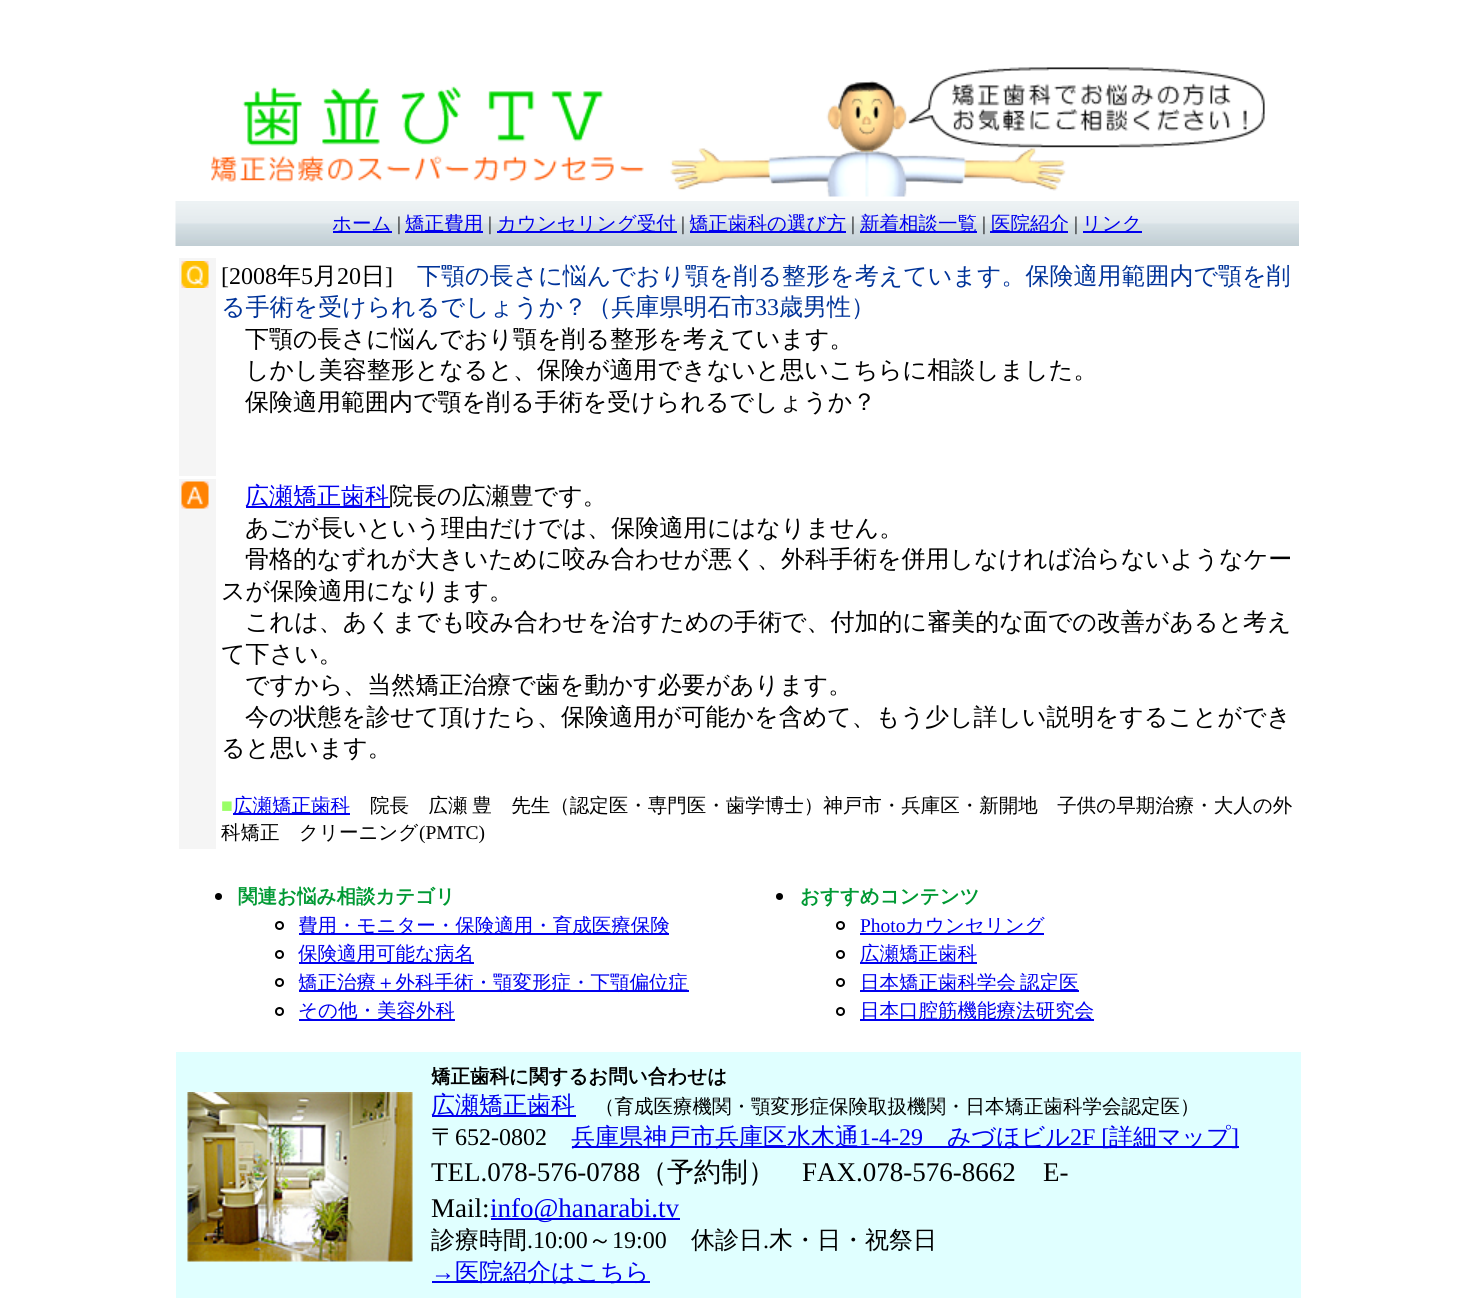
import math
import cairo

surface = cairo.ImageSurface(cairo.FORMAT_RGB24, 1474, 1298)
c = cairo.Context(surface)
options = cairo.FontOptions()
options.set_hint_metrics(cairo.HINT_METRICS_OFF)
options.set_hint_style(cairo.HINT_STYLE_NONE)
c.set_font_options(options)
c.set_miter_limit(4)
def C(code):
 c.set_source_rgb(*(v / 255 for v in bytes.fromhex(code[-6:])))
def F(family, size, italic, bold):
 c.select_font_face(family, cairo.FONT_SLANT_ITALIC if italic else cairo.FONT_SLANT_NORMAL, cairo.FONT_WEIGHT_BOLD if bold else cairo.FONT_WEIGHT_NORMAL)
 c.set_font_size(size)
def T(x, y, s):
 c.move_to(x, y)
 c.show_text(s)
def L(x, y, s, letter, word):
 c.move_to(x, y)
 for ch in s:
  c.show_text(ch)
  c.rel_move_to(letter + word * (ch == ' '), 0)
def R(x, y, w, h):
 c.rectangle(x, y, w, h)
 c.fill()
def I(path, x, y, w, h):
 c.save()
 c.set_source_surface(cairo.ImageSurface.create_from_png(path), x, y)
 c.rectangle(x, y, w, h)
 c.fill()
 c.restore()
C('ffffff')
c.paint()
I('1.png',211,67,1054,130)
I('2.png',175,201,1124,45)
C('0000ee')
R(333,231,59,2)
F('WenQuanYi Zen Hei Medium',19.5,0,0)
T(332,230,'ホーム')
F('Liberation Serif',19.5,0,0)
C('000000')
T(397,230,'|')
C('0000ee')
R(405,231,78,2)
F('WenQuanYi Zen Hei Medium',19.5,0,0)
T(405,230,'矯正費用')
F('Liberation Serif',19.5,0,0)
C('000000')
T(488,230,'|')
C('0000ee')
R(497,231,180,2)
F('WenQuanYi Zen Hei Medium',19.5,0,0)
T(497,230,'カウンセリング受付')
F('Liberation Serif',19.5,0,0)
C('000000')
T(681,230,'|')
C('0000ee')
R(690,231,156,2)
F('WenQuanYi Zen Hei Medium',19.5,0,0)
T(689,230,'矯正歯科の選び方')
F('Liberation Serif',19.5,0,0)
C('000000')
T(851,230,'|')
C('0000ee')
R(860,231,117,2)
F('WenQuanYi Zen Hei Medium',19.5,0,0)
T(860,230,'新着相談一覧')
F('Liberation Serif',19.5,0,0)
C('000000')
T(982,230,'|')
C('0000ee')
R(990,231,78,2)
F('WenQuanYi Zen Hei Medium',19.5,0,0)
T(991,230,'医院紹介')
F('Liberation Serif',19.5,0,0)
C('000000')
T(1074,230,'|')
C('0000ee')
R(1083,231,59,2)
F('WenQuanYi Zen Hei Medium',19.5,0,0)
T(1082,230,'リンク')
C('f5f5f5')
R(179,258,37,218)
I('3.png',181,261,28,27)
F('Liberation Serif',24,0,0)
C('000000')
T(221,284,'[2008')
F('WenQuanYi Zen Hei Medium',24,0,0)
T(277,284,'年')
F('Liberation Serif',24,0,0)
T(301,284,'5')
F('WenQuanYi Zen Hei Medium',24,0,0)
T(313,284,'月')
F('Liberation Serif',24,0,0)
T(337,284,'20')
F('WenQuanYi Zen Hei Medium',24,0,0)
T(361,284,'日')
F('Liberation Serif',24,0,0)
T(385,284,']')
F('WenQuanYi Zen Hei Medium',24,0,0)
C('003399')
T(417,284,'下顎の長さに悩んでおり顎を削る整形を考えています。保険適用範囲内で顎を削')
T(221,315,'る手術を受けられるでしょうか？（兵庫県明石市')
F('Liberation Serif',24,0,0)
T(755,315,'33')
F('WenQuanYi Zen Hei Medium',24,0,0)
T(779,315,'歳男性）')
C('000000')
T(245,347,'下顎の長さに悩んでおり顎を削る整形を考えています。')
T(245,378,'しかし美容整形となると、保険が適用できないと思いこちらに相談しました。')
T(245,410,'保険適用範囲内で顎を削る手術を受けられるでしょうか？')
C('f5f5f5')
R(179,479,37,370)
I('4.png',181,481,28,28)
C('0000ee')
R(246,506,144,2)
T(245,504,'広瀬矯正歯科')
C('000000')
T(389,504,'院長の広瀬豊です。')
T(245,536,'あごが長いという理由だけでは、保険適用にはなりません。')
T(245,567,'骨格的なずれが大きいために咬み合わせが悪く、外科手術を併用しなければ治らないようなケー')
T(221,599,'スが保険適用になります。')
T(245,630,'これは、あくまでも咬み合わせを治すための手術で、付加的に審美的な面での改善があると考え')
T(221,662,'て下さい。')
T(245,693,'ですから、当然矯正治療で歯を動かす必要があります。')
T(245,725,'今の状態を診せて頂けたら、保険適用が可能かを含めて、もう少し詳しい説明をすることができ')
T(221,756,'ると思います。')
F('Liberation Serif',19.5,0,0)
C('99ff66')
T(221,812,'■')
C('0000ee')
R(233,813,117,2)
F('WenQuanYi Zen Hei Medium',19.5,0,0)
T(233,812,'広瀬矯正歯科')
C('000000')
L(370,812,'院長　広瀬 豊　先生（認定医・専門医・歯学博士）神戸市・兵庫区・新開地　子供の早期治療・大人の外',0,-1)
T(221,839,'科矯正　クリーニング')
F('Liberation Serif',19.5,0,0)
T(419,839,'(PMTC)')
c.new_path()
c.arc(218.5,896.5,3.5,0,2 * math.pi)
c.fill()
F('WenQuanYi Zen Hei',19.5,0,1)
C('009933')
T(238,903,'関連お悩み相談カテゴリ')
c.new_path()
c.arc(279.5,925.5,3.5,0,2 * math.pi)
C('000000')
c.stroke()
C('0000ee')
R(299,933,370,2)
F('WenQuanYi Zen Hei Medium',19.5,0,0)
T(298,932,'費用・モニター・保険適用・育成医療保険')
c.new_path()
c.arc(279.5,954.5,3.5,0,2 * math.pi)
C('000000')
c.stroke()
C('0000ee')
R(299,962,175,2)
T(298,960,'保険適用可能な病名')
c.new_path()
c.arc(279.5,982.5,3.5,0,2 * math.pi)
C('000000')
c.stroke()
C('0000ee')
R(299,990,390,2)
T(298,989,'矯正治療＋外科手術・顎変形症・下顎偏位症')
c.new_path()
c.arc(279.5,1011.5,3.5,0,2 * math.pi)
C('000000')
c.stroke()
C('0000ee')
R(299,1019,156,2)
T(298,1017,'その他・美容外科')
C('000000')
c.new_path()
c.arc(779.5,896.5,3.5,0,2 * math.pi)
c.fill()
F('WenQuanYi Zen Hei',19.5,0,1)
C('009933')
T(800,903,'おすすめコンテンツ')
c.new_path()
c.arc(840.5,925.5,3.5,0,2 * math.pi)
C('000000')
c.stroke()
F('Liberation Serif',19.5,0,0)
C('0000ee')
T(860,932,'Photo')
R(860,933,184,2)
F('WenQuanYi Zen Hei Medium',19.5,0,0)
T(905,932,'カウンセリング')
c.new_path()
c.arc(840.5,954.5,3.5,0,2 * math.pi)
C('000000')
c.stroke()
C('0000ee')
R(860,962,117,2)
T(860,960,'広瀬矯正歯科')
c.new_path()
c.arc(840.5,982.5,3.5,0,2 * math.pi)
C('000000')
c.stroke()
C('0000ee')
R(860,990,219,2)
T(860,989,'日本矯正歯科学会')
T(1020,989,'認定医')
c.new_path()
c.arc(840.5,1011.5,3.5,0,2 * math.pi)
C('000000')
c.stroke()
C('0000ee')
R(860,1019,234,2)
T(860,1017,'日本口腔筋機能療法研究会')
C('e0ffff')
R(176,1052,1125,246)
I('5.png',187,1092,226,170)
F('WenQuanYi Zen Hei',19.5,0,1)
C('000000')
T(431,1083,'矯正歯科に関するお問い合わせは')
C('0000ee')
R(432,1115,144,2)
F('WenQuanYi Zen Hei Medium',24,0,0)
T(431,1113,'広瀬矯正歯科')
F('WenQuanYi Zen Hei Medium',19.5,0,0)
C('000000')
T(595,1113,'（育成医療機関・顎変形症保険取扱機関・日本矯正歯科学会認定医）')
F('WenQuanYi Zen Hei Medium',24,0,0)
T(431,1145,'〒')
F('Liberation Serif',24,0,0)
T(455,1145,'652-0802')
C('0000ee')
R(572,1146,667,2)
F('WenQuanYi Zen Hei Medium',24,0,0)
T(571,1145,'兵庫県神戸市兵庫区水木通')
F('Liberation Serif',24,0,0)
T(859,1145,'1-4-29')
F('WenQuanYi Zen Hei Medium',24,0,0)
T(947,1145,'みづほビル')
F('Liberation Serif',24,0,0)
T(1070,1145,'2F [')
F('WenQuanYi Zen Hei Medium',24,0,0)
T(1109,1145,'詳細マップ')
F('Liberation Serif',24,0,0)
T(1231,1145,']')
F('Liberation Serif',27,0,0)
C('000000')
T(431,1181,'TEL.078-576-0788')
F('WenQuanYi Zen Hei Medium',27,0,0)
T(640,1181,'（予約制）')
F('Liberation Serif',27,0,0)
T(802,1181,'FAX.078-576-8662')
T(1043,1181,'E-')
T(431,1217,'Mail:')
C('0000ee')
R(491,1218,189,2)
T(490,1217,'info@hanarabi.tv')
F('WenQuanYi Zen Hei Medium',24,0,0)
C('000000')
T(431,1248,'診療時間')
F('Liberation Serif',24,0,0)
T(527,1248,'.10:00')
F('WenQuanYi Zen Hei Medium',24,0,0)
T(588,1248,'～')
F('Liberation Serif',24,0,0)
T(612,1248,'19:00')
F('WenQuanYi Zen Hei Medium',24,0,0)
T(691,1248,'休診日')
T(769,1248,'木・日・祝祭日')
F('Liberation Serif',24,0,0)
T(763,1248,'.')
C('0000ee')
T(431,1280,'→')
R(432,1281,218,2)
F('WenQuanYi Zen Hei Medium',24,0,0)
T(455,1280,'医院紹介はこちら')
surface.write_to_png('o.png')
